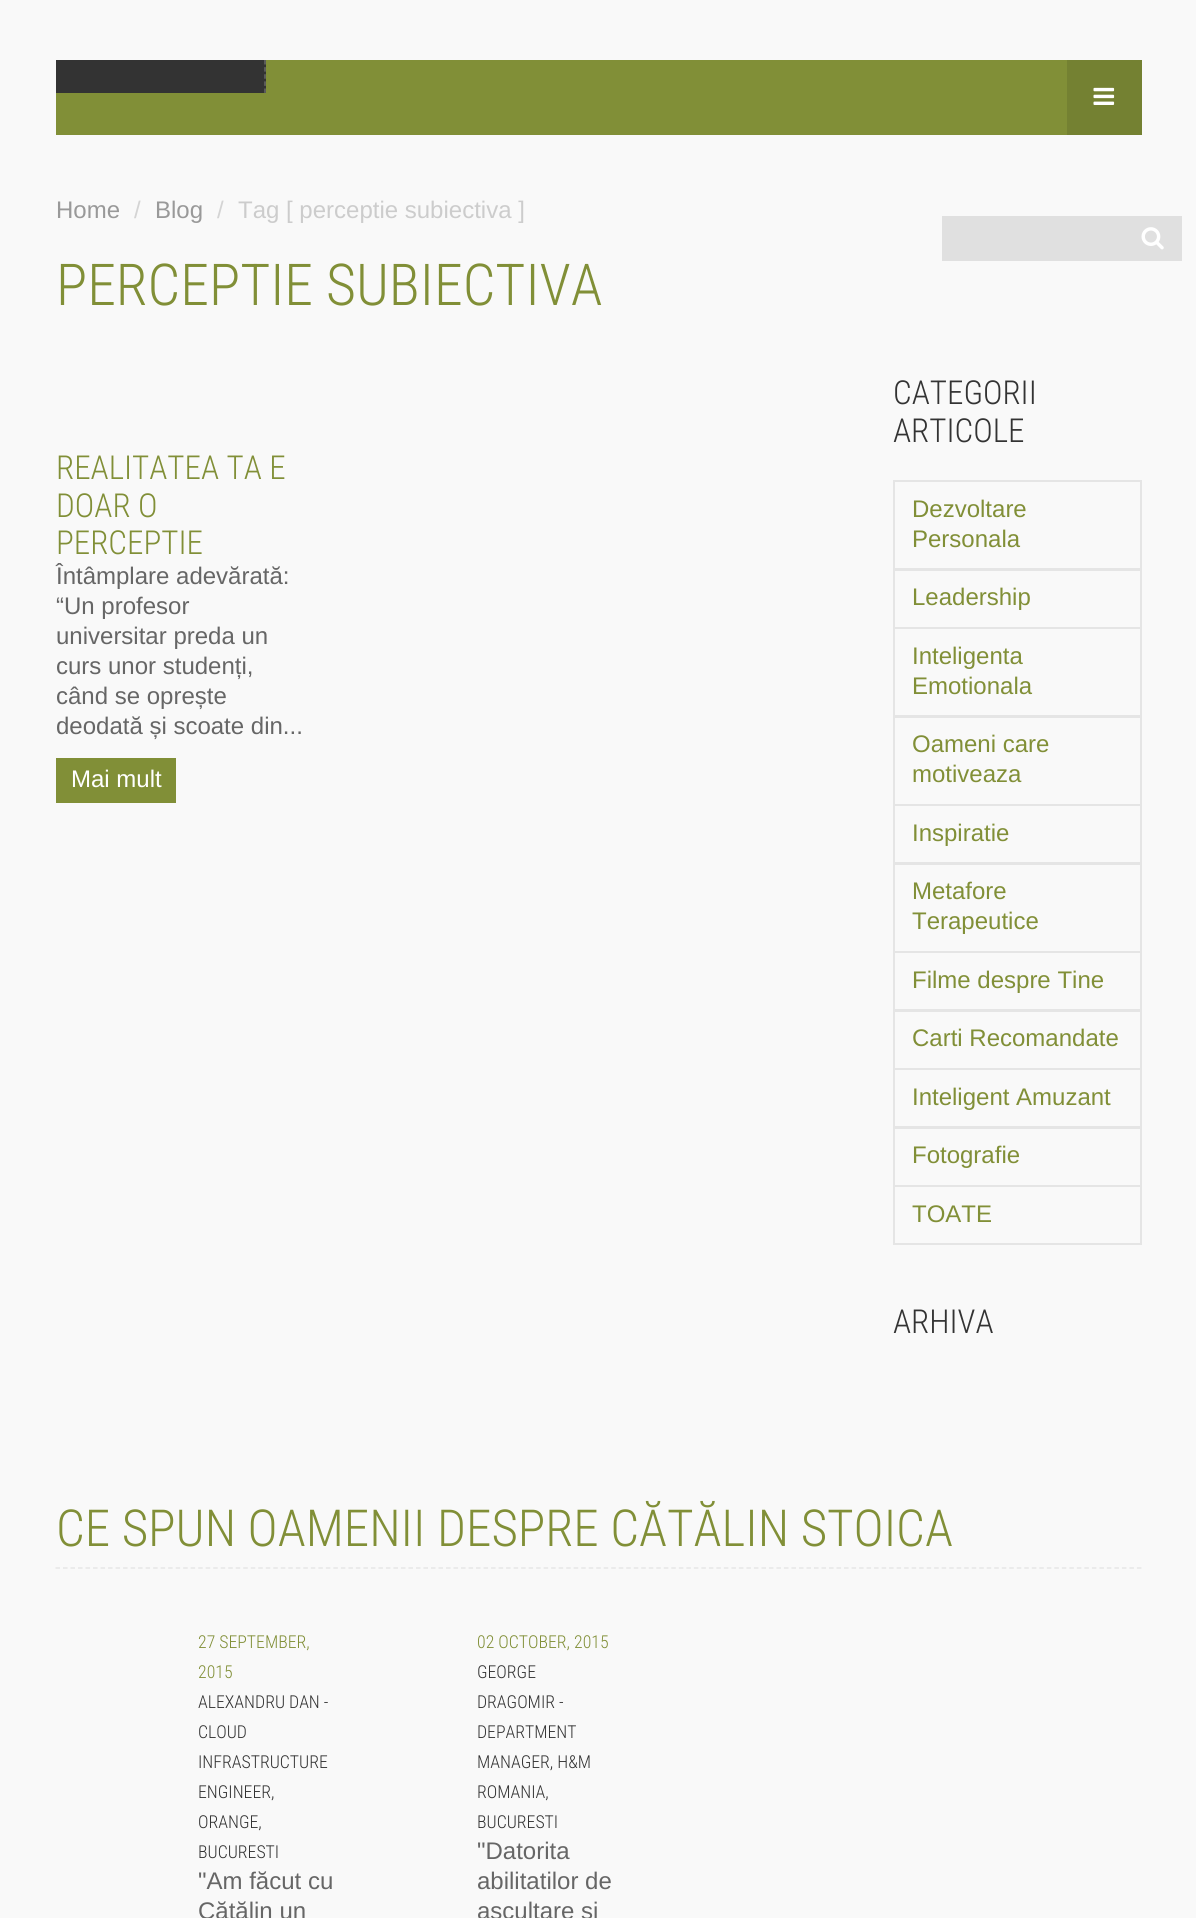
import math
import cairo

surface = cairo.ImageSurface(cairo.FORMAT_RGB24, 1196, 1918)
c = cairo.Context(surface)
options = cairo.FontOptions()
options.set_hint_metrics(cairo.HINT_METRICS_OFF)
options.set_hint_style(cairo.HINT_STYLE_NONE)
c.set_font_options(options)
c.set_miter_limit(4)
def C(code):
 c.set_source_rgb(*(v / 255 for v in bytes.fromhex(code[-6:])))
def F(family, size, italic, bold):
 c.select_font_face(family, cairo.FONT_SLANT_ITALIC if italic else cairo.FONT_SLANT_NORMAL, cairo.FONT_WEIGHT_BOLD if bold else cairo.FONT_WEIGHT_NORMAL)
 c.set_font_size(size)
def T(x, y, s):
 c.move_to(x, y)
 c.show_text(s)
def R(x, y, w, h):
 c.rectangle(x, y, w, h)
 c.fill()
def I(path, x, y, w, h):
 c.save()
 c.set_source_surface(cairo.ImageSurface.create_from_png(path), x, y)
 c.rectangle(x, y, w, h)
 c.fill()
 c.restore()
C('f9f9f9')
c.paint()
C('818f37')
R(56,60,1011,75)
C('333333')
R(56,60,210,33)
c.new_path()
c.move_to(265,60)
c.line_to(265,93)
C('666666')
c.set_line_width(1.5)
c.set_dash([4.5,2.62])
c.stroke()
C('748132')
R(1067,60,75,75)
I('1.png',1093,87,22,18)
F('Liberation Sans',24,0,0)
C('999999')
T(56,218,'Home')
C('d4d4d4')
T(134,218,'/')
C('999999')
T(155,218,'Blog')
C('d4d4d4')
T(217,218,'/')
C('cccccc')
T(238,218,'Tag [ perceptie subiectiva ]')
F('Roboto Condensed Light',57.75,0,0)
C('818f37')
T(56,305,'PERCEPTIE SUBIECTIVA')
F('Roboto Condensed Light',33,0,0)
T(56,479,'REALITATEA TA E')
T(56,517,'DOAR O')
T(56,554,'PERCEPTIE')
F('Liberation Sans',24,0,0)
C('666666')
T(56,584,'Întâmplare adevărată:')
T(56,614,'“Un profesor')
T(56,644,'universitar preda un')
T(56,674,'curs unor studenți,')
T(56,704,'când se oprește')
T(56,734,'deodată și scoate din...')
C('818f37')
R(56,758,120,45)
C('ffffff')
T(71,787,'Mai mult')
F('Roboto Condensed Light',33,0,0)
C('333333')
T(893,404,'CATEGORII')
T(893,442,'ARTICOLE')
c.rectangle(894,481,247,88)
C('e5e5e5')
c.set_line_width(2)
c.set_dash([])
c.stroke()
F('Liberation Sans',24,0,0)
C('818f37')
T(912,517,'Dezvoltare')
T(912,547,'Personala')
c.rectangle(894,570,247,58)
C('e5e5e5')
c.stroke()
C('818f37')
T(912,605,'Leadership')
c.rectangle(894,628,247,88)
C('e5e5e5')
c.stroke()
C('818f37')
T(912,664,'Inteligenta')
T(912,694,'Emotionala')
c.rectangle(894,717,247,88)
C('e5e5e5')
c.stroke()
C('818f37')
T(912,752,'Oameni care')
T(912,782,'motiveaza')
c.rectangle(894,805,247,58)
C('e5e5e5')
c.stroke()
C('818f37')
T(912,841,'Inspiratie')
c.rectangle(894,864,247,88)
C('e5e5e5')
c.stroke()
C('818f37')
T(912,899,'Metafore')
T(912,929,'Terapeutice')
c.rectangle(894,952,247,58)
C('e5e5e5')
c.stroke()
C('818f37')
T(912,988,'Filme despre Tine')
c.rectangle(894,1011,247,58)
C('e5e5e5')
c.stroke()
C('818f37')
T(912,1046,'Carti Recomandate')
c.rectangle(894,1069,247,58)
C('e5e5e5')
c.stroke()
C('818f37')
T(912,1105,'Inteligent Amuzant')
c.rectangle(894,1128,247,58)
C('e5e5e5')
c.stroke()
C('818f37')
T(912,1163,'Fotografie')
c.rectangle(894,1186,247,58)
C('e5e5e5')
c.stroke()
C('818f37')
T(912,1222,'TOATE')
F('Roboto Condensed Light',33,0,0)
C('333333')
T(893,1333,'ARHIVA')
C('e0e0e0')
R(942,216,240,45)
I('2.png',1141,227,23,23)
F('Roboto Condensed Light',51,0,0)
C('818f37')
T(56,1546,'CE SPUN OAMENII DESPRE CĂTĂLIN STOICA')
c.new_path()
c.move_to(55.5,1568)
c.line_to(1141.5,1568)
C('e6e6e6')
c.set_line_width(1.5)
c.set_dash([4.5,3.01])
c.stroke()
F('Roboto Condensed Light',17.75,0,0)
C('818f37')
T(198,1648,'27 SEPTEMBER,')
T(198,1678,'2015')
C('333333')
T(198,1708,'ALEXANDRU DAN -')
T(198,1738,'CLOUD')
T(198,1768,'INFRASTRUCTURE')
T(198,1798,'ENGINEER,')
T(198,1828,'ORANGE,')
T(198,1858,'BUCURESTI')
F('Liberation Sans',24,0,0)
C('666666')
T(198,1889,'"Am făcut cu')
T(198,1919,'Cătălin un')
F('Roboto Condensed Light',17.75,0,0)
C('818f37')
T(477,1648,'02 OCTOBER, 2015')
C('333333')
T(477,1678,'GEORGE')
T(477,1708,'DRAGOMIR -')
T(477,1738,'DEPARTMENT')
T(477,1768,'MANAGER, H&M')
T(477,1798,'ROMANIA,')
T(477,1828,'BUCURESTI')
F('Liberation Sans',24,0,0)
C('666666')
T(477,1859,'"Datorita')
T(477,1889,'abilitatilor de')
T(477,1919,'ascultare si')
surface.write_to_png('o.png')
